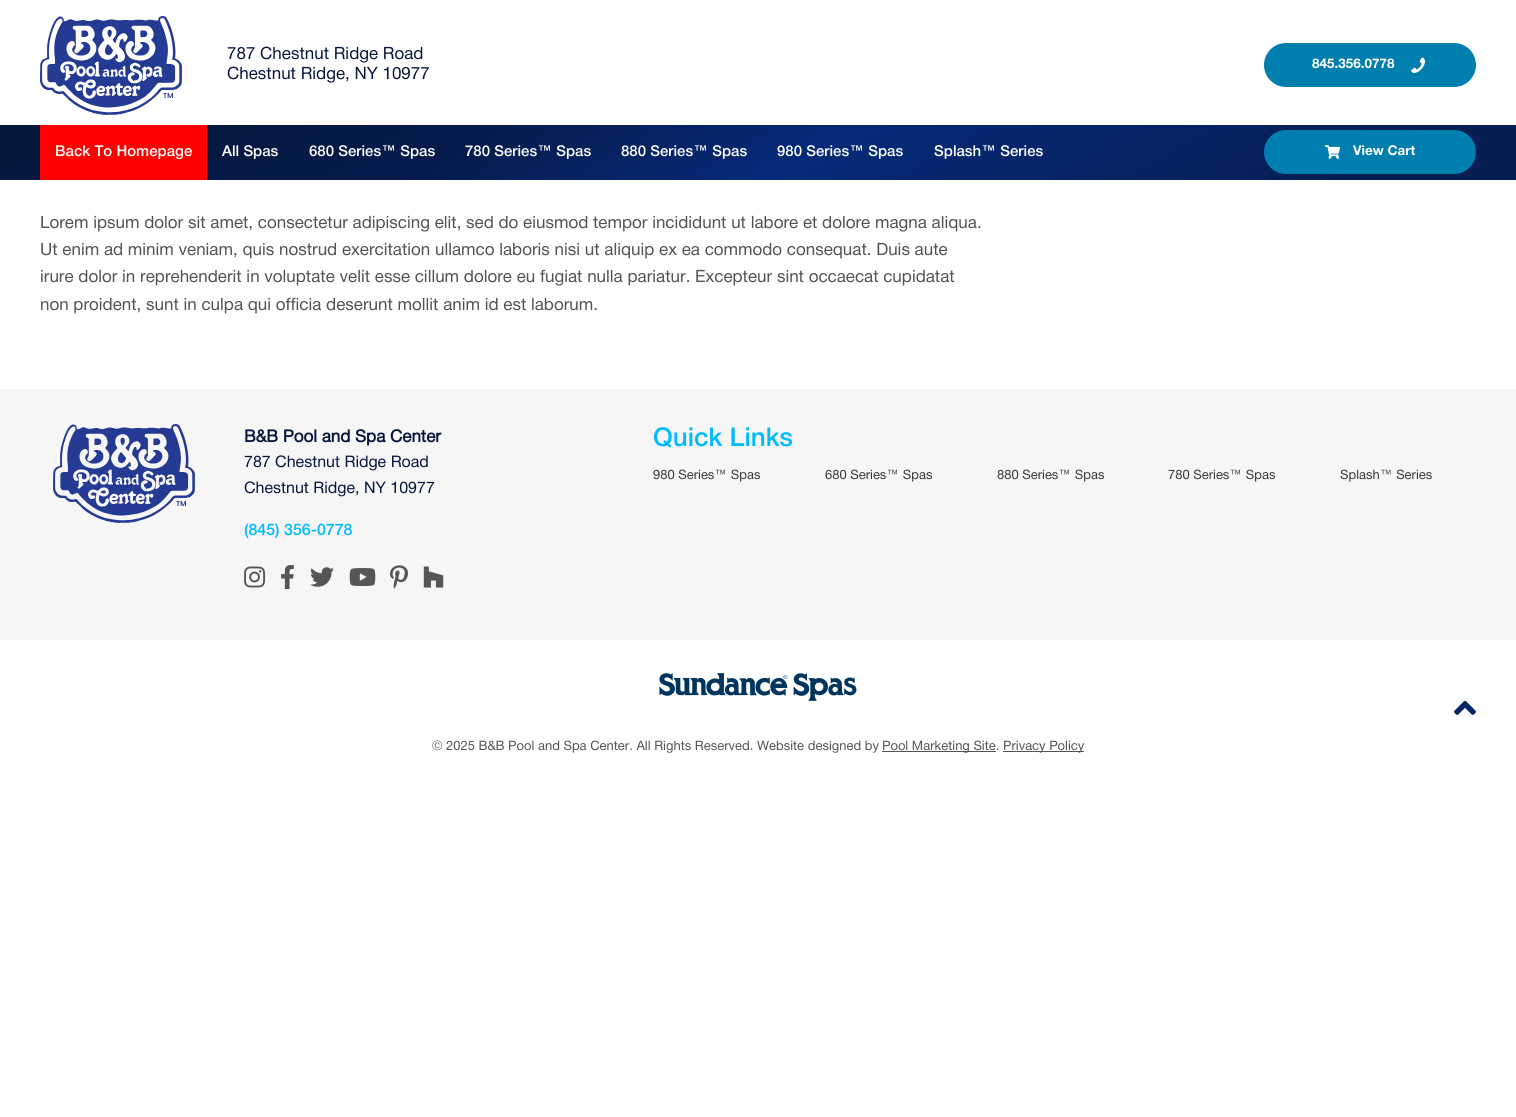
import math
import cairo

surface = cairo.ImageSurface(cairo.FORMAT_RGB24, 1516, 1117)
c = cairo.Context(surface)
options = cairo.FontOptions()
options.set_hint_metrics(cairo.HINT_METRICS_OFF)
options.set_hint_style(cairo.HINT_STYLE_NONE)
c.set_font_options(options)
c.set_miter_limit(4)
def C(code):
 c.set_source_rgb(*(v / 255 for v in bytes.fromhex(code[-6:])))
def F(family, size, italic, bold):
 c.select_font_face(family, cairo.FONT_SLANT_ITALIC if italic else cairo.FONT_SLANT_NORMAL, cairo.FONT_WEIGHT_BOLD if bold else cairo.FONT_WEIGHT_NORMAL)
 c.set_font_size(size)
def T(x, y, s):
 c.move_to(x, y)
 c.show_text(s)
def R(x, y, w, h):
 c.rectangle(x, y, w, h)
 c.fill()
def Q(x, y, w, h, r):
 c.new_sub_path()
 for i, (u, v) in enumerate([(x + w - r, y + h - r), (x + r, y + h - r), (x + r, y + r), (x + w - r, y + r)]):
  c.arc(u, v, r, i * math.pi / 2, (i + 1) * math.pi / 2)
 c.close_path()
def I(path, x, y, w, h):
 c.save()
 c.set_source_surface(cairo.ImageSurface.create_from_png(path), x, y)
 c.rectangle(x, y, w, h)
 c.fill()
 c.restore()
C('ffffff')
c.paint()
I('1.png',40,16,142,99)
F('Helvetica Neue',17,0,0)
C('06173c')
T(227,59,'787 Chestnut Ridge Road')
T(227,79,'Chestnut Ridge, NY 10977')
C('007ead')
Q(1264,43,212,44,22)
c.fill()
F('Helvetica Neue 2',13.5,0,1)
C('ffffff')
T(1312,68,'845.356.0778')
I('2.png',1411,57,14,16)
gradient = cairo.LinearGradient(557,-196,959,501)
gradient.add_color_stop_rgba(0,0.024,0.09,0.235,1)
gradient.add_color_stop_rgba(.3,0.024,0.106,0.29,1)
gradient.add_color_stop_rgba(.53,0.024,0.165,0.471,1)
gradient.add_color_stop_rgba(.9,0.024,0.118,0.322,1)
gradient.add_color_stop_rgba(1,0.024,0.118,0.322,1)
c.set_source(gradient)
R(0,125,1516,55)
C('ff0000')
R(40,125,167,55)
F('Helvetica Neue Medium',15,0,0)
C('ffffff')
T(55,156,'Back To Homepage')
T(222,156,'All Spas')
T(309,156,'680 Series™ Spas')
T(465,156,'780 Series™ Spas')
T(621,156,'880 Series™ Spas')
T(777,156,'980 Series™ Spas')
T(934,156,'Splash™ Series')
C('007ead')
Q(1264,130,212,44,22)
c.fill()
I('3.png',1325,145,16,14)
F('Helvetica Neue 2',13.5,0,1)
C('ffffff')
T(1353,155,'View Cart')
F('Helvetica Neue',17,0,0)
C('525252')
T(40,228,'Lorem ipsum dolor sit amet, consectetur adipiscing elit, sed do eiusmod tempor incididunt ut labore et dolore magna aliqua.')
T(40,255,'Ut enim ad minim veniam, quis nostrud exercitation ullamco laboris nisi ut aliquip ex ea commodo consequat. Duis aute')
T(40,282,'irure dolor in reprehenderit in voluptate velit esse cillum dolore eu fugiat nulla pariatur. Excepteur sint occaecat cupidatat')
T(40,310,'non proident, sunt in culpa qui officia deserunt mollit anim id est laborum.')
C('f6f6f7')
R(0,389,1516,251)
I('4.png',53,424,142,99)
F('Helvetica Neue',17,0,1)
C('06173c')
T(244,442,'B&B Pool and Spa Center')
F('Helvetica Neue',16,0,0)
T(244,467,'787 Chestnut Ridge Road')
T(244,493,'Chestnut Ridge, NY 10977')
F('Helvetica Neue Medium',16,0,0)
C('00bbff')
T(244,535,'(845) 356-0778')
I('5.png',244,566,22,22)
I('6.png',281,565,13,24)
I('7.png',310,567,24,20)
I('8.png',349,568,27,18)
I('9.png',390,565,18,24)
I('10.png',423,566,21,22)
F('Helvetica Neue Medium',26,0,0)
T(653,446,'Quick Links')
F('Helvetica Neue',13,0,0)
C('373737')
T(653,479,'980 Series™ Spas')
T(825,479,'680 Series™ Spas')
T(997,479,'880 Series™ Spas')
T(1168,479,'780 Series™ Spas')
T(1340,479,'Splash™ Series')
I('11.png',659,673,198,28)
I('12.png',1454,700,22,15)
C('525252')
T(432,750,'© 2025 B&B Pool and Spa Center. All Rights Reserved. Website designed by')
R(882,751,114,1)
T(882,750,'Pool Marketing Site.')
R(1003,751,81,1)
T(1003,750,'Privacy Policy')
surface.write_to_png('o.png')
